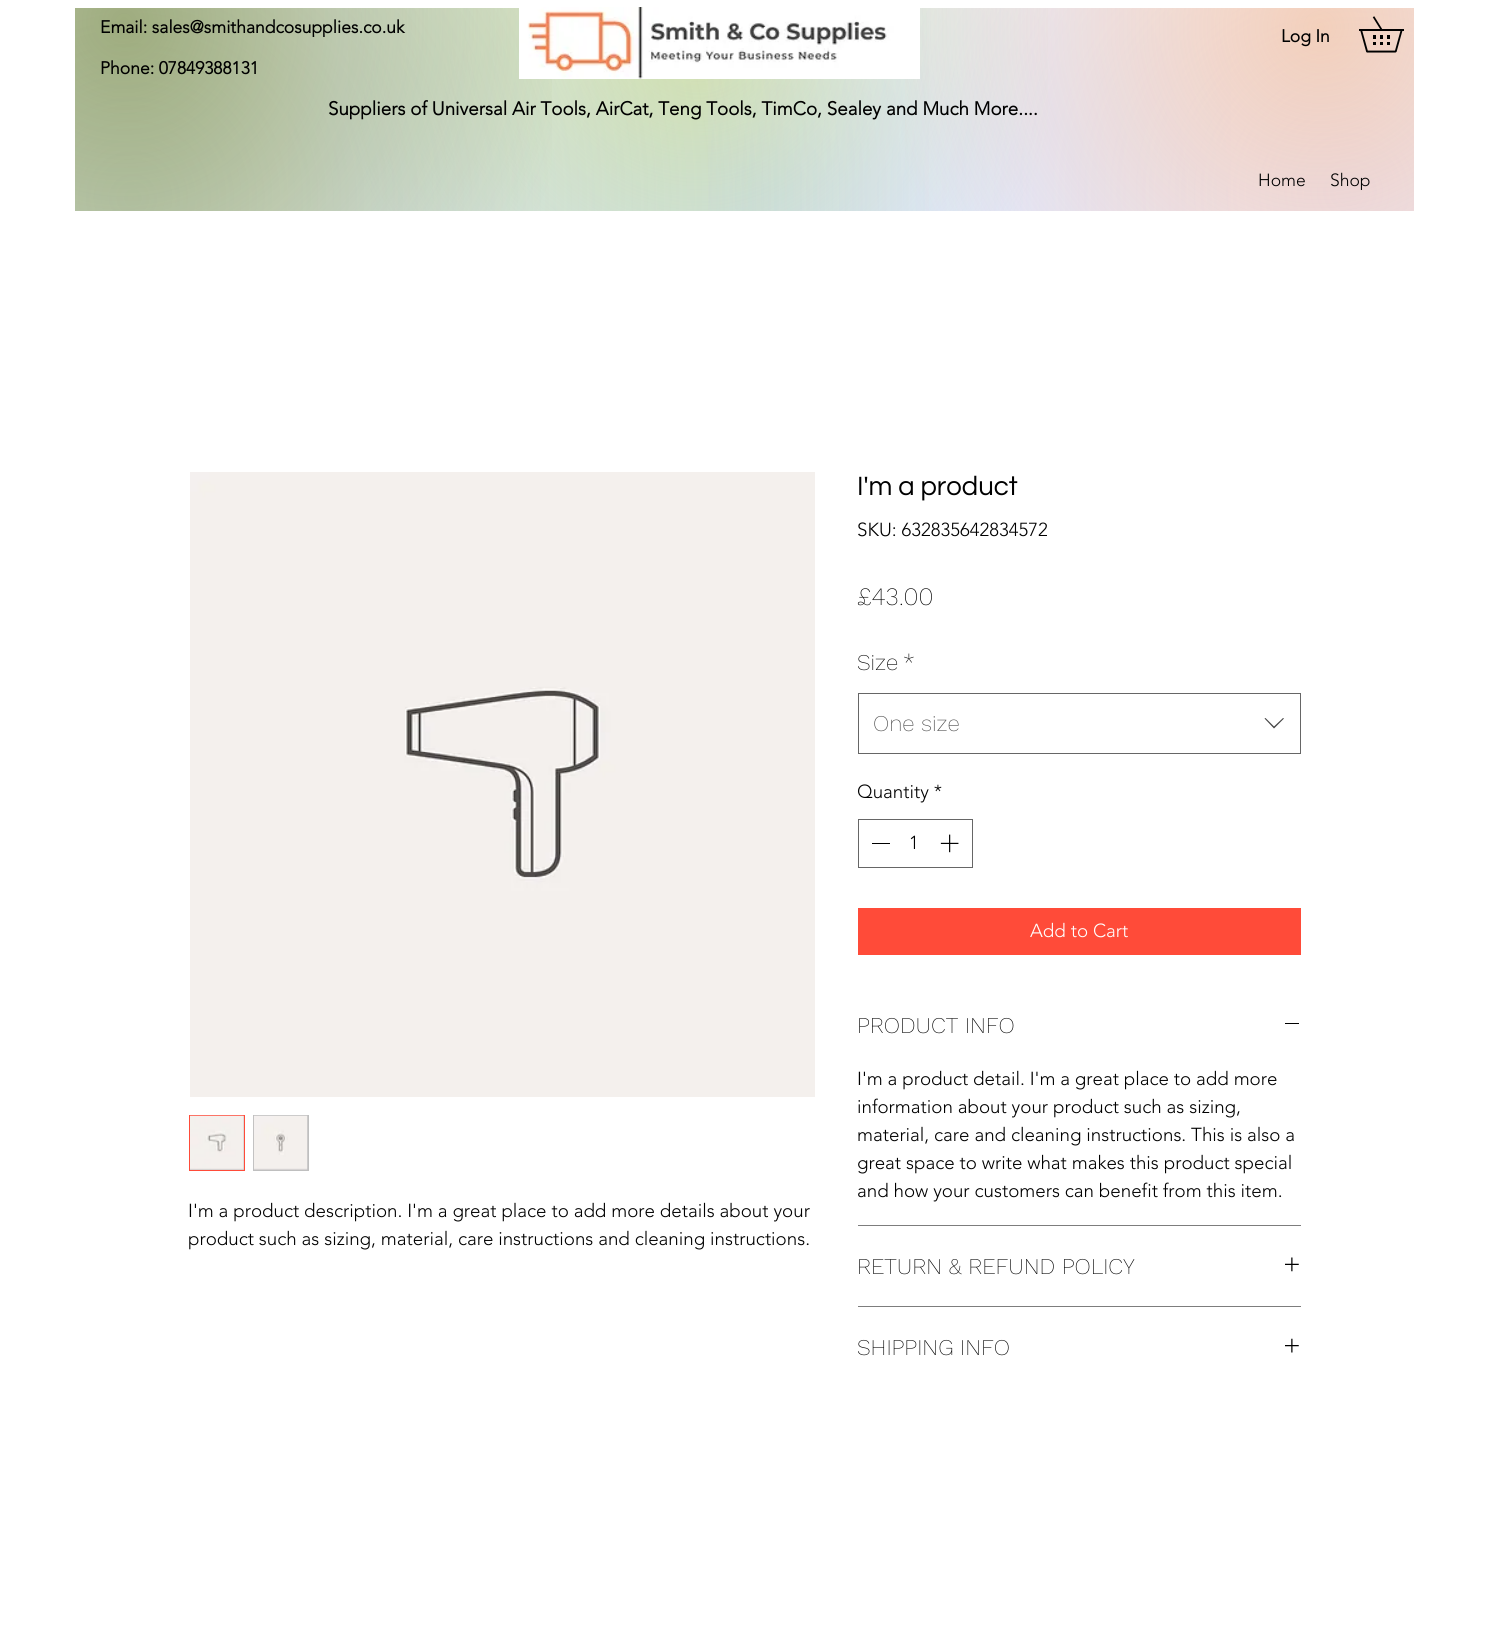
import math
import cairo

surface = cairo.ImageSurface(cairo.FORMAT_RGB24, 1488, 1637)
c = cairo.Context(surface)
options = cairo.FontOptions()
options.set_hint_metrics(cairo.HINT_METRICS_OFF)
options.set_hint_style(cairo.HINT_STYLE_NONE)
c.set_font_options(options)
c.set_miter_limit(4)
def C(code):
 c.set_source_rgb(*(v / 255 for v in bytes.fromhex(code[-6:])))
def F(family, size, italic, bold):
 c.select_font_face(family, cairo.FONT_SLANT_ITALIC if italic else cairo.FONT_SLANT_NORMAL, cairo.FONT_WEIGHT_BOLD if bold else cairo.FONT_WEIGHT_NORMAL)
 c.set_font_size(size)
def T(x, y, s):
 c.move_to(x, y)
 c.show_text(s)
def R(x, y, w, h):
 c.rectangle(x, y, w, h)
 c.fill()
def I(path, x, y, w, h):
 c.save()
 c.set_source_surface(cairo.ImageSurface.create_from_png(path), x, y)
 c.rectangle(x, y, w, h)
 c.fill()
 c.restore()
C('ffffff')
c.paint()
gradient = cairo.RadialGradient(759,191,0,759,191,709)
gradient.add_color_stop_rgba(0,0.82,0.902,1,1)
gradient.add_color_stop_rgba(.7,1,1,1,1)
c.set_source(gradient)
R(288,8,943,203)
gradient = cairo.RadialGradient(698,31,0,698,31,738)
gradient.add_color_stop_rgba(0,0.839,0.871,0.282,.43)
gradient.add_color_stop_rgba(.5,0.839,0.871,0.282,0)
c.set_source(gradient)
R(348,8,700,203)
gradient = cairo.RadialGradient(133,198,0,133,198,1295)
gradient.add_color_stop_rgba(0,0.592,0.706,0.616,.43)
gradient.add_color_stop_rgba(.65,0.592,0.706,0.616,0)
c.set_source(gradient)
R(75,8,854,203)
gradient = cairo.RadialGradient(1350,192,0,1350,192,1288)
gradient.add_color_stop_rgba(0,0.788,0.776,1,.43)
gradient.add_color_stop_rgba(.55,0.788,0.776,1,0)
c.set_source(gradient)
R(708,8,706,203)
gradient = cairo.RadialGradient(1320,27,0,1320,27,1258)
gradient.add_color_stop_rgba(0,0.98,0.667,0.388,.43)
gradient.add_color_stop_rgba(.35,0.98,0.667,0.388,0)
c.set_source(gradient)
R(905,8,509,203)
gradient = cairo.RadialGradient(124,22,0,124,22,1303)
gradient.add_color_stop_rgba(0,0.302,0.376,0.004,.43)
gradient.add_color_stop_rgba(.35,0.302,0.376,0.004,0)
c.set_source(gradient)
R(75,8,477,203)
I('1.png',519,7,401,72)
F('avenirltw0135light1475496',17.5,0,1)
C('000000')
T(100,33,'Email: sales@smithandcosupplies.co.uk')
T(100,74,'Phone: 07849388131')
T(1281,42,'Log In')
I('2.png',1359,16,45,37)
F('avenirltw0135light1475496',18.75,0,1)
T(328,115,'Suppliers of Universal Air Tools, AirCat, Teng Tools, TimCo, Sealey and Much More....')
F('avenirltw0135light1475496 Light',17.5,0,0)
T(1258,186,'Home')
T(1330,186,'Shop')
I('3.png',190,472,625,625)
C('bfbfbf')
c.rectangle(189.5,1115.5,55,55)
c.fill_preserve()
C('ff4b39')
c.set_line_width(1)
c.stroke()
I('4.png',190,1115,54,55)
C('bfbfbf')
R(253,1115,56,56)
I('5.png',253,1115,55,55)
F('avenirltw0135light1475496 Light',18.75,0,0)
C('000000')
T(188,1217,'I\'m a product description. I\'m a great place to add more details about your')
T(188,1245,'product such as sizing, material, care instructions and cleaning instructions.')
F('Questrial',27.5,0,0)
T(857,495,'I\'m a product')
F('avenirltw0135light1475496 Light',18.75,0,0)
T(857,536,'SKU: 632835642834572')
F('Work Sans ExtraLight',25,0,0)
T(857,605,'£43.00')
F('Work Sans ExtraLight',22.5,0,0)
T(857,670,'Size')
T(903,670,'*')
c.rectangle(858.5,693.5,442,60)
C('666666')
c.stroke()
C('444444')
T(873,731,'One size')
c.set_fill_rule(cairo.FILL_RULE_EVEN_ODD)
c.new_path()
c.move_to(1283,718)
c.line_to(1284,718.5)
c.line_to(1274,728.5)
c.line_to(1264.5,718.5)
c.line_to(1265.5,718)
c.line_to(1274,726.5)
c.close_path()
c.fill()
F('avenirltw0135light1475496 Light',18.75,0,0)
C('000000')
T(857,798,'Quantity *')
c.rectangle(858.5,819.5,114,48)
C('666666')
c.stroke()
C('000000')
R(872,843,18,1)
T(909,849,'1')
I('6.png',940,834,19,19)
C('ff4b39')
R(858,908,443,47)
C('ffffff')
T(1030,937,'Add to Cart')
C('7d7d7d')
R(858,1225,443,1)
F('Work Sans ExtraLight',22.5,0,0)
C('000000')
T(857,1033,'PRODUCT INFO')
R(1285,1023,14,1)
F('avenirltw0135light1475496 Light',18.75,0,0)
T(857,1085,'I\'m a product detail. I\'m a great place to add more')
T(857,1113,'information about your product such as sizing,')
T(857,1141,'material, care and cleaning instructions. This is also a')
T(857,1169,'great space to write what makes this product special')
T(857,1197,'and how your customers can benefit from this item.')
C('7d7d7d')
R(858,1306,443,1)
F('Work Sans ExtraLight',22.5,0,0)
C('000000')
T(857,1274,'RETURN & REFUND POLICY')
I('7.png',1285,1257,14,15)
T(857,1355,'SHIPPING INFO')
I('8.png',1285,1338,14,15)
surface.write_to_png('o.png')
